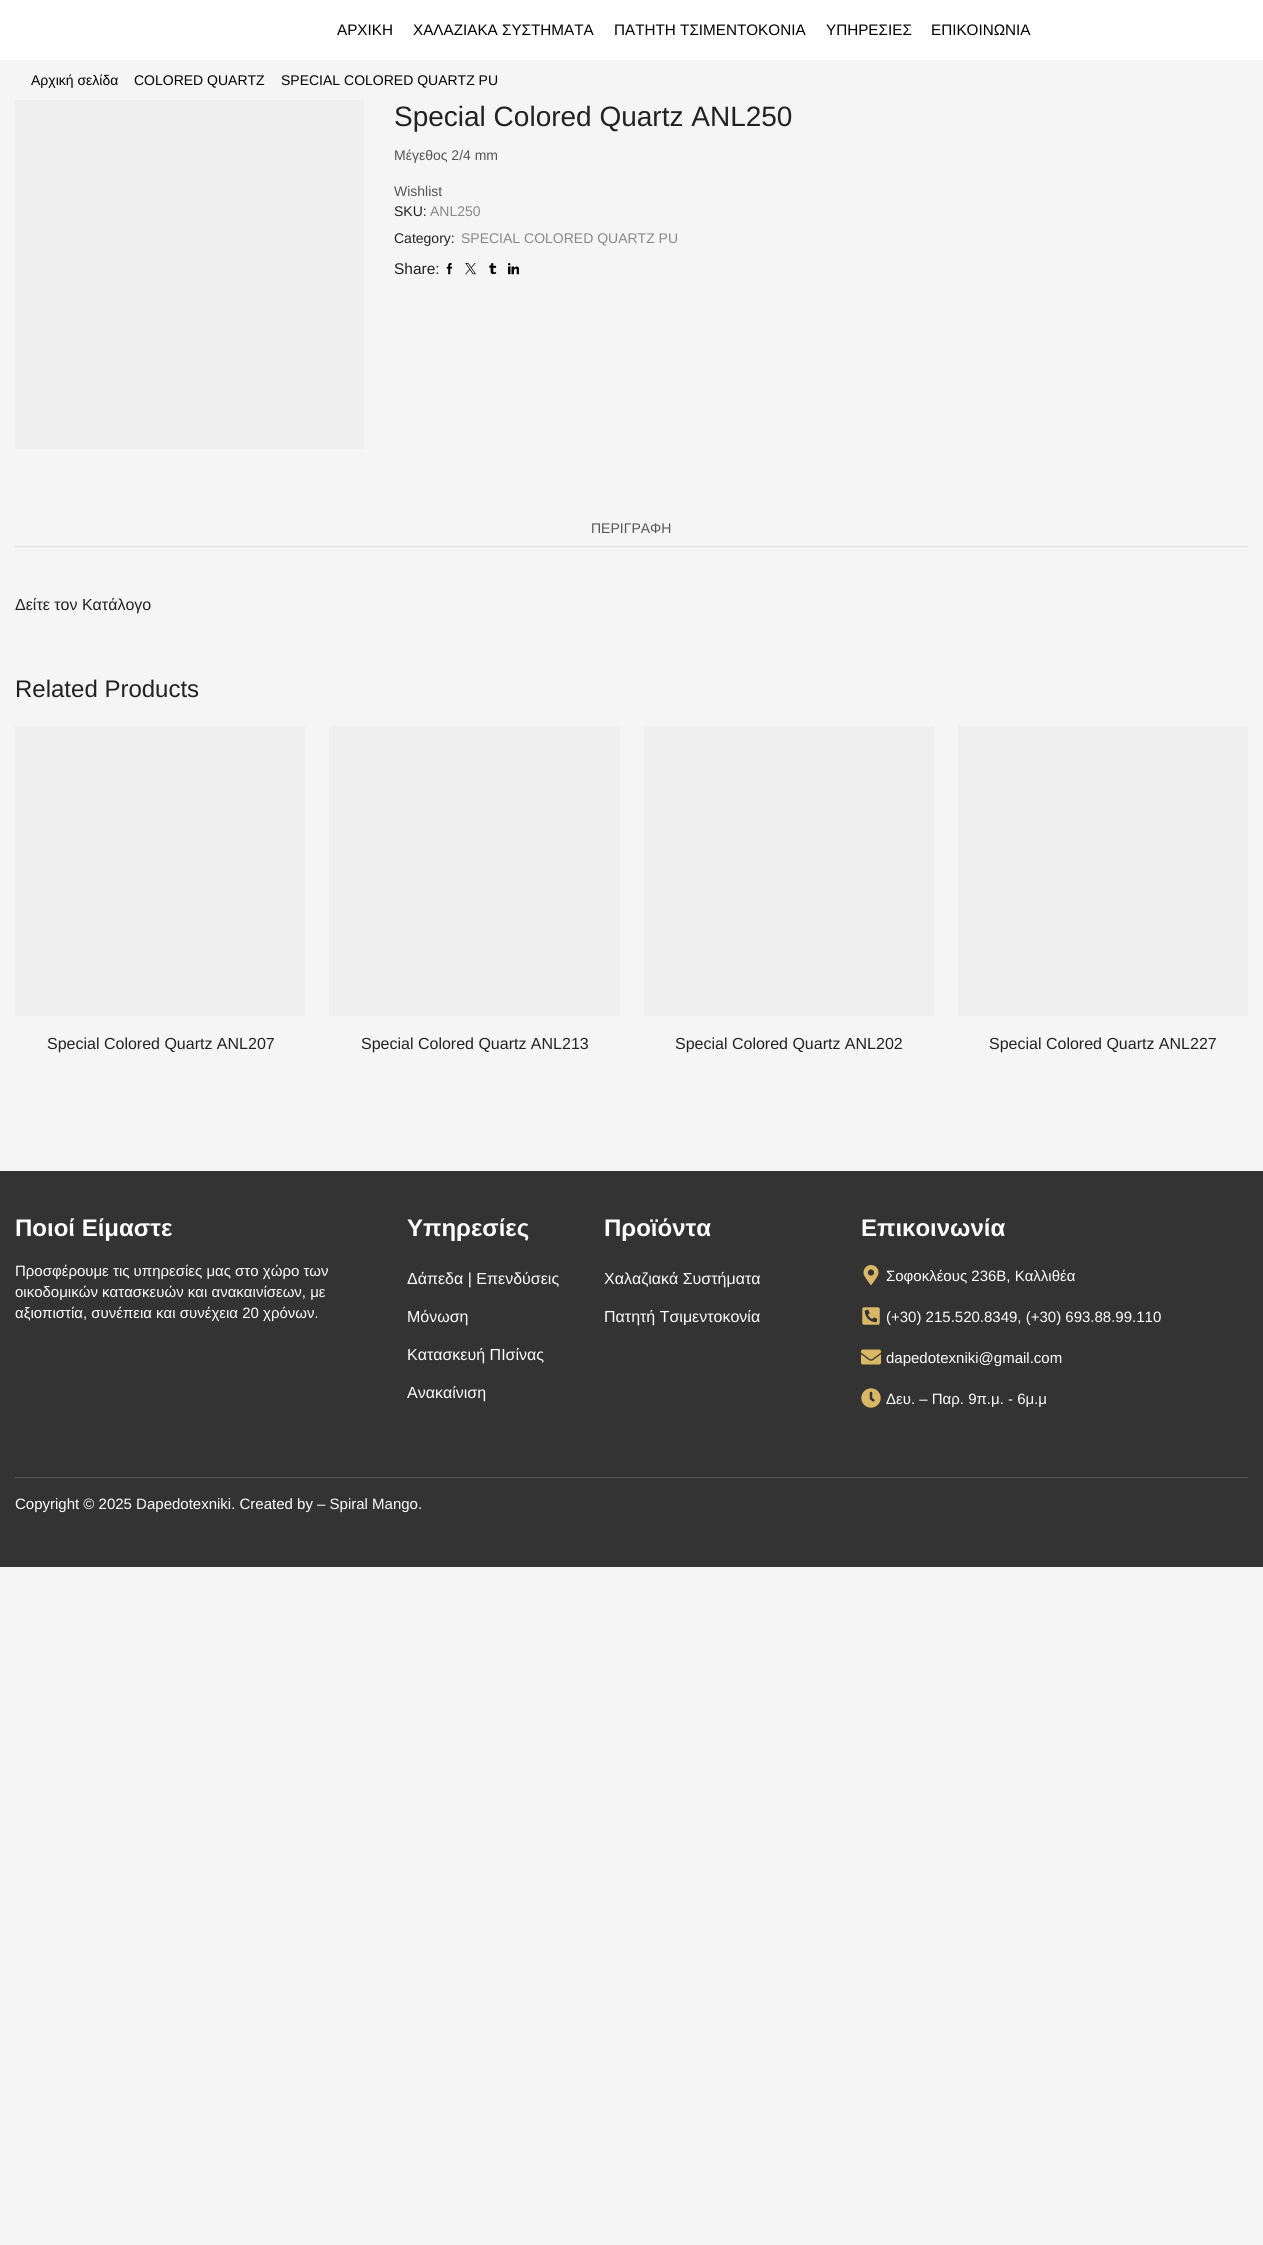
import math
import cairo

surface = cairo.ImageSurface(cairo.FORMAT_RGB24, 1263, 2245)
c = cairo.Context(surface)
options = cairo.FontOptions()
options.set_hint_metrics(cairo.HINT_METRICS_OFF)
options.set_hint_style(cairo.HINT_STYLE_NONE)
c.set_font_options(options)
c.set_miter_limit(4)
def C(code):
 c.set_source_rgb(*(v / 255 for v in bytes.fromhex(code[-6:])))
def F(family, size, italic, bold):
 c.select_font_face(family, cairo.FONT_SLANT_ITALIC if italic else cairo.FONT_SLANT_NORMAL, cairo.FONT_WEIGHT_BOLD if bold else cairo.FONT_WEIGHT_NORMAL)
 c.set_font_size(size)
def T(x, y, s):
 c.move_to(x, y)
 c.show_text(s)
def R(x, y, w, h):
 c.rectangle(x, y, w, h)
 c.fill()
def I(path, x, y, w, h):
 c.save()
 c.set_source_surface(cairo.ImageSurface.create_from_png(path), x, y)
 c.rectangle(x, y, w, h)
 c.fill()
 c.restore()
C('f5f5f5')
c.paint()
C('ffffff')
R(0,0,1263,60)
F('Liberation Sans',15.25,0,0)
C('000000')
T(337,35,'ΑΡΧΙΚΗ')
T(413,35,'ΧΑΛΑΖΙΑΚΑ ΣΥΣΤΗΜΑΤΑ')
T(614,35,'ΠΑΤΗΤΗ ΤΣΙΜΕΝΤΟΚΟΝΙΑ')
T(826,35,'ΥΠΗΡΕΣΙΕΣ')
T(931,35,'ΕΠΙΚΟΙΝΩΝΙΑ')
F('Liberation Sans',14,0,0)
T(31,85,'Αρχική σελίδα')
T(134,85,'COLORED QUARTZ')
T(281,85,'SPECIAL COLORED QUARTZ PU')
C('efefef')
R(15,100,349,349)
F('Liberation Sans',28,0,0)
C('222222')
T(394,126,'Special Colored Quartz ANL250')
F('Liberation Sans',14,0,0)
C('555555')
T(394,160,'Μέγεθος 2/4 mm')
T(394,196,'Wishlist')
C('222222')
T(394,216,'SKU:')
C('888888')
T(430,216,'ANL250')
C('222222')
T(394,243,'Category:')
C('888888')
T(461,243,'SPECIAL COLORED QUARTZ PU')
F('Liberation Sans',15.5,0,0)
C('222222')
T(394,274,'Share:')
I('1.png',446,263,7,12)
I('2.png',465,263,11,12)
I('3.png',489,263,8,12)
I('4.png',508,263,11,12)
F('Liberation Sans',14,0,0)
C('555555')
T(591,533,'ΠΕΡΙΓΡΑΦΗ')
C('e1e1e1')
R(15,546,1233,1)
F('Liberation Sans',16,0,0)
C('222222')
T(15,610,'Δείτε τον Κατάλογο')
F('Liberation Sans',24,0,0)
T(15,697,'Related Products')
C('efefef')
R(15,726,290,290)
F('Liberation Sans',16,0,0)
C('222222')
T(47,1049,'Special Colored Quartz ANL207')
C('efefef')
R(329,726,291,290)
C('222222')
T(361,1049,'Special Colored Quartz ANL213')
C('efefef')
R(644,726,290,290)
C('222222')
T(675,1049,'Special Colored Quartz ANL202')
C('efefef')
R(958,726,290,290)
C('222222')
T(989,1049,'Special Colored Quartz ANL227')
C('333333')
R(0,1171,1263,396)
F('Liberation Sans',24,0,1)
C('ffffff')
T(15,1236,'Ποιοί Είμαστε')
F('Liberation Sans',15,0,0)
T(15,1276,'Προσφέρουμε τις υπηρεσίες μας στο χώρο των')
T(15,1297,'οικοδομικών κατασκευών και ανακαινίσεων, με')
T(15,1318,'αξιοπιστία, συνέπεια και συνέχεια 20 χρόνων.')
F('Liberation Sans',24,0,1)
T(407,1236,'Υπηρεσίες')
F('Liberation Sans',16,0,0)
T(407,1284,'Δάπεδα | Επενδύσεις')
T(407,1322,'Μόνωση')
T(407,1360,'Κατασκευή ΠΙσίνας')
T(407,1398,'Ανακαίνιση')
F('Liberation Sans',24,0,1)
T(604,1236,'Προϊόντα')
F('Liberation Sans',16,0,0)
T(604,1284,'Χαλαζιακά Συστήματα')
T(604,1322,'Πατητή Τσιμεντοκονία')
F('Liberation Sans',24,0,1)
T(861,1236,'Επικοινωνία')
I('5.png',863,1265,16,20)
F('Liberation Sans',15,0,0)
T(886,1281,'Σοφοκλέους 236Β, Καλλιθέα')
I('6.png',862,1307,18,18)
T(886,1322,'(+30) 215.520.8349, (+30) 693.88.99.110')
I('7.png',861,1349,20,16)
T(886,1363,'dapedotexniki@gmail.com')
I('8.png',861,1388,20,20)
T(886,1404,'Δευ. – Παρ. 9π.μ. - 6μ.μ')
C('545454')
R(15,1477,1233,1)
C('ffffff')
T(15,1509,'Copyright © 2025 Dapedotexniki. Created by – Spiral Mango.')
surface.write_to_png('o.png')
